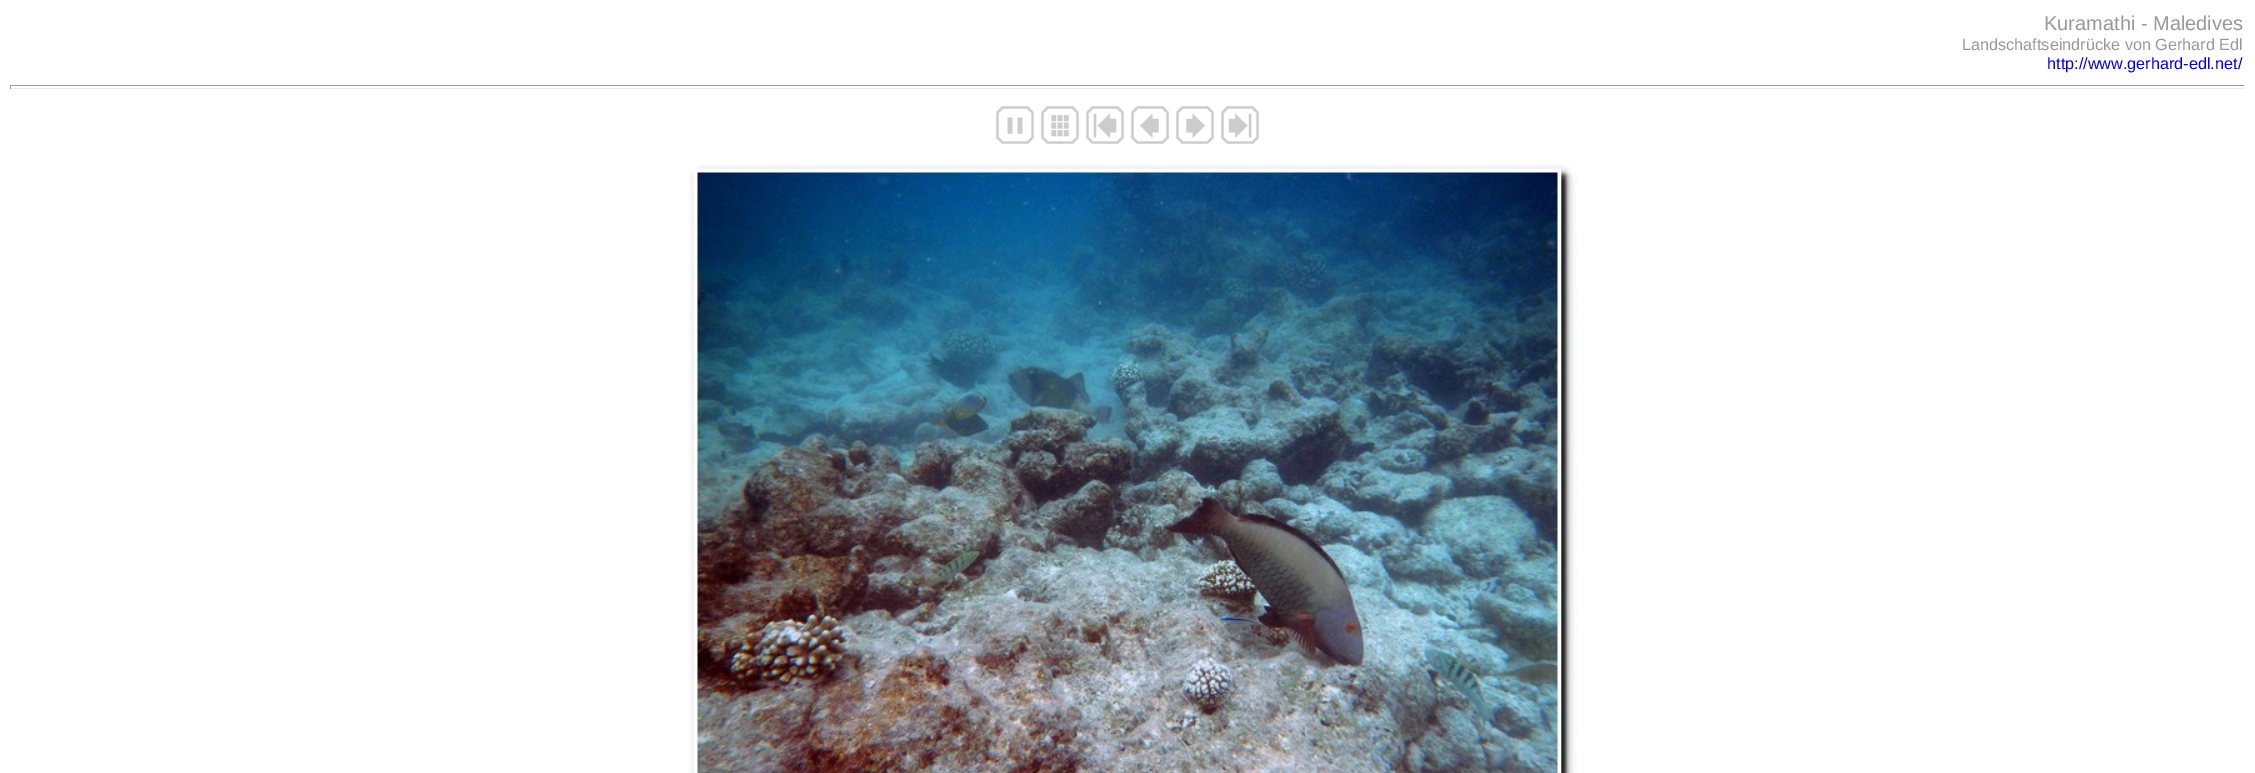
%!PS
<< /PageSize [2255 773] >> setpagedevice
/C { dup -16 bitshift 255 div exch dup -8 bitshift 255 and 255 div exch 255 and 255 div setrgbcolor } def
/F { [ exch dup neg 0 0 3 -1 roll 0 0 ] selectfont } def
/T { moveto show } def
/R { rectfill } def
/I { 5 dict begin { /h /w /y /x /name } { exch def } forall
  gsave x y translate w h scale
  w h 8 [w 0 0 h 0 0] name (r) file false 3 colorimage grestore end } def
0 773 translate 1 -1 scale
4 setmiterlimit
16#FFFFFF C
0 0 2255 773 R
/LiberationSans-Regular 20 F
16#999999 C
(Kuramathi - Maledives) 2044 30 T
/LiberationSans-Regular 16.25 F
(Landschaftseindrücke von Gerhard Edl) 1962 50 T
16#0000EE C
(http://www.gerhard-edl.net/) 2047 69 T
16#9F9F9F C
10 85 2235 1 R
16#EEEEEE C
2244 85 1 4 R
10 88 2235 1 R
16#9F9F9F C
10 85 1 4 R
(1.rgb) 996 106 38 38 I
(2.rgb) 1041 106 38 38 I
(3.rgb) 1086 106 38 38 I
(4.rgb) 1131 106 38 38 I
(5.rgb) 1176 106 38 38 I
(6.rgb) 1221 106 38 38 I
(7.rgb) 689 164 888 609 I
showpage
